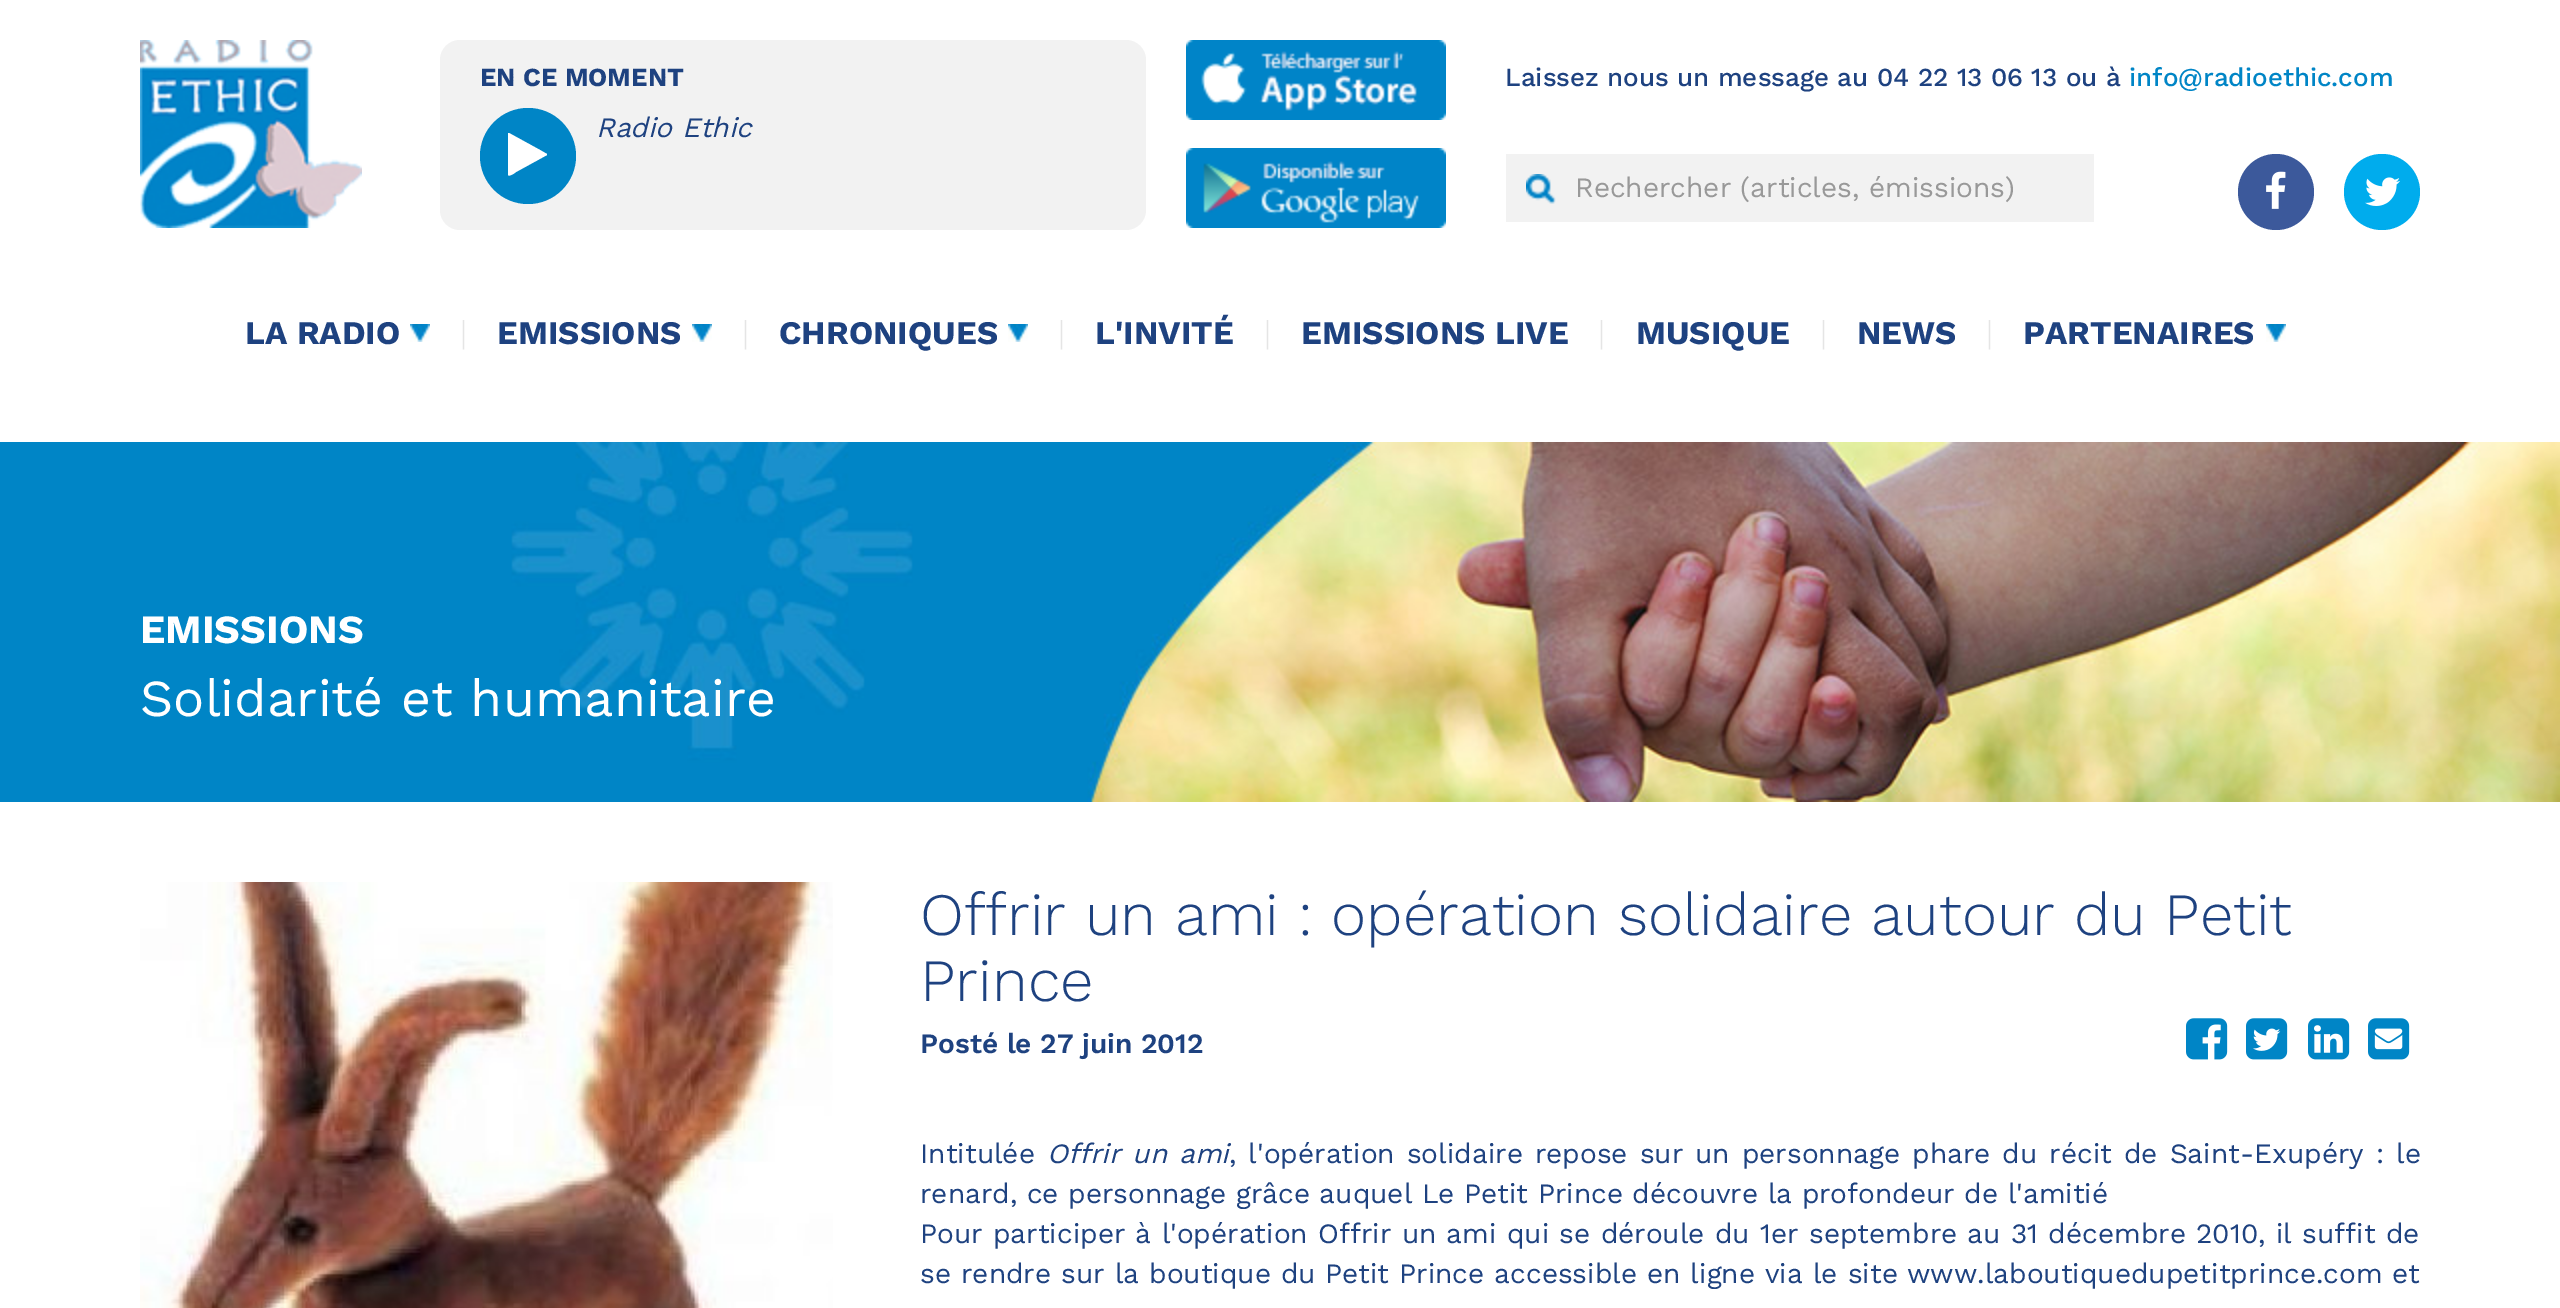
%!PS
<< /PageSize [2560 1308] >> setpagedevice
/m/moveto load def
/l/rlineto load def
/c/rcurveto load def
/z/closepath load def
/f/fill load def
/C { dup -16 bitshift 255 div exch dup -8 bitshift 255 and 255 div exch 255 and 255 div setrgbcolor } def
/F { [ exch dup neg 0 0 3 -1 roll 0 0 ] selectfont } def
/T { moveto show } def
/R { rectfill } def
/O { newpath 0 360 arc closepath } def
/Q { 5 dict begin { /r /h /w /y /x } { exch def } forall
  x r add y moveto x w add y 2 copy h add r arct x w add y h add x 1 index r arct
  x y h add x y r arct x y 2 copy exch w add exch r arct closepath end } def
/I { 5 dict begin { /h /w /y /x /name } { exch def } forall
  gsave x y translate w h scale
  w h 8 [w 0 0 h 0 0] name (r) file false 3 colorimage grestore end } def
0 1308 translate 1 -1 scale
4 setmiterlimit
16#FFFFFF C
0 0 2560 1308 R
(1.rgb) 140 40 222 188 I
16#F2F2F2 C
440 40 706 190 20 Q f
/WorkSans-Bold 26 F
16#1E4280 C
(EN CE MOMENT) 480 86 T
16#0085C6 C
528 156 48 O f
16#FFFFFF C
547 155 m -31 17 l -1 1 -7 5 -8 3 c 0 -42 l 1 0 l 31 17 l 7 4 l z f
/WorkSans-Italic 28 F
16#1E4280 C
(Radio Ethic) 596 137 T
(2.rgb) 1186 40 260 80 I
(3.rgb) 1186 148 260 80 I
/WorkSans-Medium 26 F
(Laissez nous un message au 04 22 13 06 13 ou à) 1505 86 T
16#0085C6 C
(info@radioethic.com) 2129 86 T
16#F2F2F2 C
1506 154 588 68 R
(4.rgb) 1526 174 30 30 I
/WorkSans-Regular 28 F
16#999999 C
(Rechercher \(articles, émissions\)) 1575 197 T
16#3C599B C
2276 192 38 O f
(5.rgb) 2266 171 20 38 I
16#00ACED C
2382 192 38 O f
(6.rgb) 2365 177 35 29 I
(7.rgb) 410 324 20 18 I
/WorkSans-Bold 33 F
16#1E4280 C
(LA RADIO) 245 344 T
(7.rgb) 692 324 20 18 I
/WorkSans-Light 33 F
16#E5E5E5 C
(|) 460 344 T
/WorkSans-Bold 33 F
16#1E4280 C
(EMISSIONS) 497 344 T
(7.rgb) 1008 324 20 18 I
/WorkSans-Light 33 F
16#E5E5E5 C
(|) 742 344 T
/WorkSans-Bold 33 F
16#1E4280 C
(CHRONIQUES) 779 344 T
/WorkSans-Light 33 F
16#E5E5E5 C
(|) 1058 344 T
/WorkSans-Bold 33 F
16#1E4280 C
(L'INVITÉ) 1095 344 T
/WorkSans-Light 33 F
16#E5E5E5 C
(|) 1264 344 T
/WorkSans-Bold 33 F
16#1E4280 C
(EMISSIONS LIVE) 1301 344 T
/WorkSans-Light 33 F
16#E5E5E5 C
(|) 1598 344 T
/WorkSans-Bold 33 F
16#1E4280 C
(MUSIQUE) 1636 344 T
/WorkSans-Light 33 F
16#E5E5E5 C
(|) 1820 344 T
/WorkSans-Bold 33 F
16#1E4280 C
(NEWS) 1857 344 T
(7.rgb) 2266 324 20 18 I
/WorkSans-Light 33 F
16#E5E5E5 C
(|) 1986 344 T
/WorkSans-Bold 33 F
16#1E4280 C
(PARTENAIRES) 2023 344 T
16#0085C6 C
0 442 511 360 R
(8.rgb) 511 442 2049 360 I
/WorkSans-Bold 40 F
16#FFFFFF C
(EMISSIONS) 140 643 T
/WorkSans-Regular 52 F
(Solidarité et humanitaire) 140 716 T
(9.rgb) 140 882 693 426 I
/WorkSans-Light 60 F
16#1E4280 C
(Offrir un ami : opération solidaire autour du Petit) 920 935 T
(Prince) 920 1001 T
/WorkSans-SemiBold 28 F
(Posté le 27 juin 2012) 920 1053 T
(10.rgb) 2186 1018 42 42 I
(11.rgb) 2246 1018 42 42 I
(12.rgb) 2308 1018 42 42 I
(13.rgb) 2368 1018 42 42 I
/WorkSans-Regular 28 F
(Intitulée) 920 1163 T
/WorkSans-Italic 28 F
1047 1163 m 2.5 0 32 (Offrir un ami) widthshow
/WorkSans-Regular 28 F
1229 1163 m 2.5 0 32 (, l'opération solidaire repose sur un personnage phare du récit de Saint-Exupéry : le) widthshow
(renard, ce personnage grâce auquel Le Petit Prince découvre la profondeur de l'amitié) 920 1203 T
920 1243 m .75 0 32 (Pour participer à l'opération Offrir un ami qui se déroule du 1er) widthshow
1809 1243 m .75 0 32 (septembre au 31 décembre 2010, il suffit de) widthshow
920 1283 m .5 0 32 (se rendre sur la boutique du) widthshow
1325 1283 m .5 0 32 (Petit Prince accessible en ligne via le site) widthshow
(www.laboutiquedupetitprince.com et) 1907 1283 T
showpage
